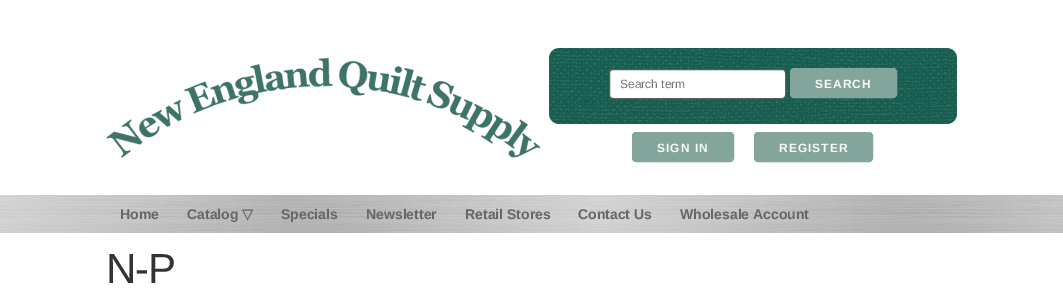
%!PS
<< /PageSize [1063 304] >> setpagedevice
/m/moveto load def
/f/fill load def
/s/stroke load def
/q/gsave load def
/Q_/grestore load def
/C { dup -16 bitshift 255 div exch dup -8 bitshift 255 and 255 div exch 255 and 255 div setrgbcolor } def
/F { [ exch dup neg 0 0 3 -1 roll 0 0 ] selectfont } def
/T { moveto show } def
/R { rectfill } def
/Q { 5 dict begin { /r /h /w /y /x } { exch def } forall
  x r add y moveto x w add y 2 copy h add r arct x w add y h add x 1 index r arct
  x y h add x y r arct x y 2 copy exch w add exch r arct closepath end } def
/I { 5 dict begin { /h /w /y /x /name } { exch def } forall
  gsave x y translate w h scale
  w h 8 [w 0 0 h 0 0] name (r) file false 3 colorimage grestore end } def
0 304 translate 1 -1 scale
4 setmiterlimit
16#FFFFFF C
0 0 1063 304 R
(1.rgb) 106 58 435 100 I
16#005A4A C
549 48 408 76 10 Q f
(2.rgb) 549 48 408 76 I
16#FFFFFF C
609.5 69.5 176 29 3.5 Q q f Q_
16#595D5D C
s
/LiberationSans-Regular 12 F
16#757575 C
(Search term) 620 88 T
16#84A59C C
790.5 68.5 106 29 3.5 Q q f Q_
s
/LiberationSans-Bold 12 F
16#F7F7F7 C
815 88 m 1 0 (SEARCH) ashow
16#84A59C C
632.5 132.5 101 29 3.5 Q q f Q_
s
16#F7F7F7 C
657 152 m 1 0 (SIGN IN) ashow
16#84A59C C
754.5 132.5 118 29 3.5 Q q f Q_
s
16#F7F7F7 C
779 152 m 1 0 (REGISTER) ashow
(3.rgb) 0 195 1063 38 I
/LiberationSans-Bold 14 F
16#666666 C
(Home) 120 219 T
(Catalog) 187 219 T
/DejaVuSans-Bold 14 F
(▽) 242 219 T
/LiberationSans-Bold 14 F
(Specials) 281 219 T
(Newsletter) 366 219 T
(Retail Stores) 465 219 T
(Contact Us) 578 219 T
(Wholesale Account) 680 219 T
/LiberationSans-Regular 42 F
16#333333 C
106 283 m -1 0 (N-P) ashow
showpage
